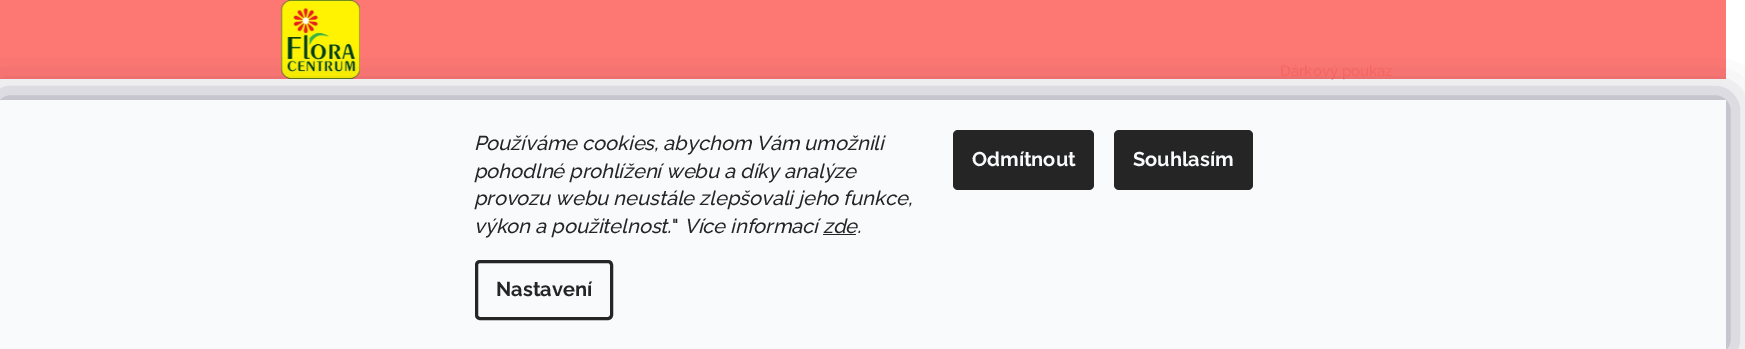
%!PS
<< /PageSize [1745 349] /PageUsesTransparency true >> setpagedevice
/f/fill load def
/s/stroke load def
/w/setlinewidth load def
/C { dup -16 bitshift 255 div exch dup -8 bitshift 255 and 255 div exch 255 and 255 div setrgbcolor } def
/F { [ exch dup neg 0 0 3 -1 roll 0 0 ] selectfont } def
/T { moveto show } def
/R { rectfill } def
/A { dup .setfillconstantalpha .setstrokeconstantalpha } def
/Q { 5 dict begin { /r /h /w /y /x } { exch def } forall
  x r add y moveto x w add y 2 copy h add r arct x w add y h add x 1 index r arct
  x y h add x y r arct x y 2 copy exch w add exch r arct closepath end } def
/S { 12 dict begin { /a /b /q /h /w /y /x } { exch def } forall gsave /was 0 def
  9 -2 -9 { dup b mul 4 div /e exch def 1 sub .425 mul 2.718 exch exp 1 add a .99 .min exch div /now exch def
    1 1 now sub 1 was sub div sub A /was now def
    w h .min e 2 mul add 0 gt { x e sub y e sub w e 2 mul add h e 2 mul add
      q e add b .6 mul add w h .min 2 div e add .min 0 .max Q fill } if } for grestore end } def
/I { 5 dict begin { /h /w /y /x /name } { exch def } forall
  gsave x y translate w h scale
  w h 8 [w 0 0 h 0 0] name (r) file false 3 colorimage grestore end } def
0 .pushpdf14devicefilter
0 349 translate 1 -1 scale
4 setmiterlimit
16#FFFFFF C
0 0 1745 349 R
16#FD7773 C
0 0 1726 79 R
(1.rgb) 280 0 80 79 I
/Raleway-Medium 15 F
16#FD6863 C
(Dárkový poukaz) 1280 76 T
16#1B1939 C
0 100 1726 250 0 19 .5 S
16#F8FAFB C
0 100 1726 249 R
/Raleway-MediumItalic 20 F
16#252525 C
(Používáme cookies, abychom Vám umožnili) 474 150 T
(pohodlné prohlížení webu a díky analýze) 474 178 T
(provozu webu neustále zlepšovali jeho funkce,) 474 205 T
(výkon a použitelnost.) 474 233 T
/Raleway-Medium 20 F
(") 672 233 T
/Raleway-MediumItalic 20 F
(Více informací zde.) 684 233 T
823 234 33 1 R
3 w
476.5 261.5 135 57 3.5 Q s
/Raleway-Bold 20 F
(Nastavení) 496 296 T
953 130 141 60 5 Q f
16#F8FAFB C
(Odmítnout) 972 166 T
16#252525 C
1114 130 139 60 5 Q f
16#F8FAFB C
(Souhlasím) 1133 166 T
.poppdf14devicefilter showpage
